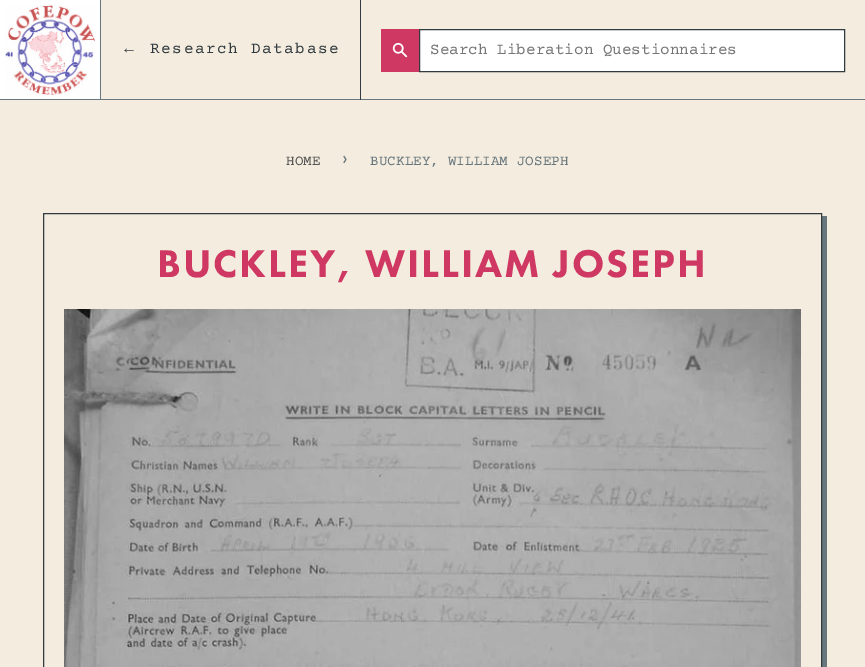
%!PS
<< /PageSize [865 667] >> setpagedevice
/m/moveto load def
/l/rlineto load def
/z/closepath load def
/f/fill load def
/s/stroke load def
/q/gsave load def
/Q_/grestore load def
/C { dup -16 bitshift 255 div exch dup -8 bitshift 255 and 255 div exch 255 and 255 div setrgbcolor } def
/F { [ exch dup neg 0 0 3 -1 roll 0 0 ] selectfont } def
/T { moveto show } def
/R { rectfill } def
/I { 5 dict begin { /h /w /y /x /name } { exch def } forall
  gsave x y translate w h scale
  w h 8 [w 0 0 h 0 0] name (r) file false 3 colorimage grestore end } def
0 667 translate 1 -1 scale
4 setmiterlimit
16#F4EDDF C
0 0 865 667 R
16#68767D C
101 99 764 1 R
16#FFFFFF C
0 0 100 99 R
16#68767D C
100 0 1 100 R
0 99 101 1 R
(1.rgb) 5 5 90 90 I
16#323B40 C
360 0 1 100 R
/LiberationSans-Regular 16 F
121 53 m 1.6 0 (←) ashow
/CourierPrime-Regular 16 F
150 53 m 1.6 0 (Research Database) ashow
16#CF3862 C
381 29 38 43 R
(2.rgb) 392 42 16 16 I
16#FFFFFF C
419.5 29.5 m 425 0 l 0 42 l -425 0 l z q f Q_
16#323B40 C
s
16#757575 C
(Search Liberation Questionnaires) 430 54 T
/CourierPrime-Regular 14.4 F
16#555555 C
(HOME) 286 165 T
/CourierPrime-Regular 20 F
16#68767D C
(›) 339 165 T
/CourierPrime-Regular 14.4 F
(BUCKLEY, WILLIAM JOSEPH) 370 165 T
46 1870 m 0 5 l 781 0 l 0 -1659 l -5 0 l 0 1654 l z f
16#323B40 C
43.5 213.5 778 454 rectstroke
/FuturaPT-Black 40 F
16#CF3862 C
157 277 m 2 0 (BUCKLEY, WILLIAM JOSEPH) ashow
(3.rgb) 64 309 737 358 I
showpage
